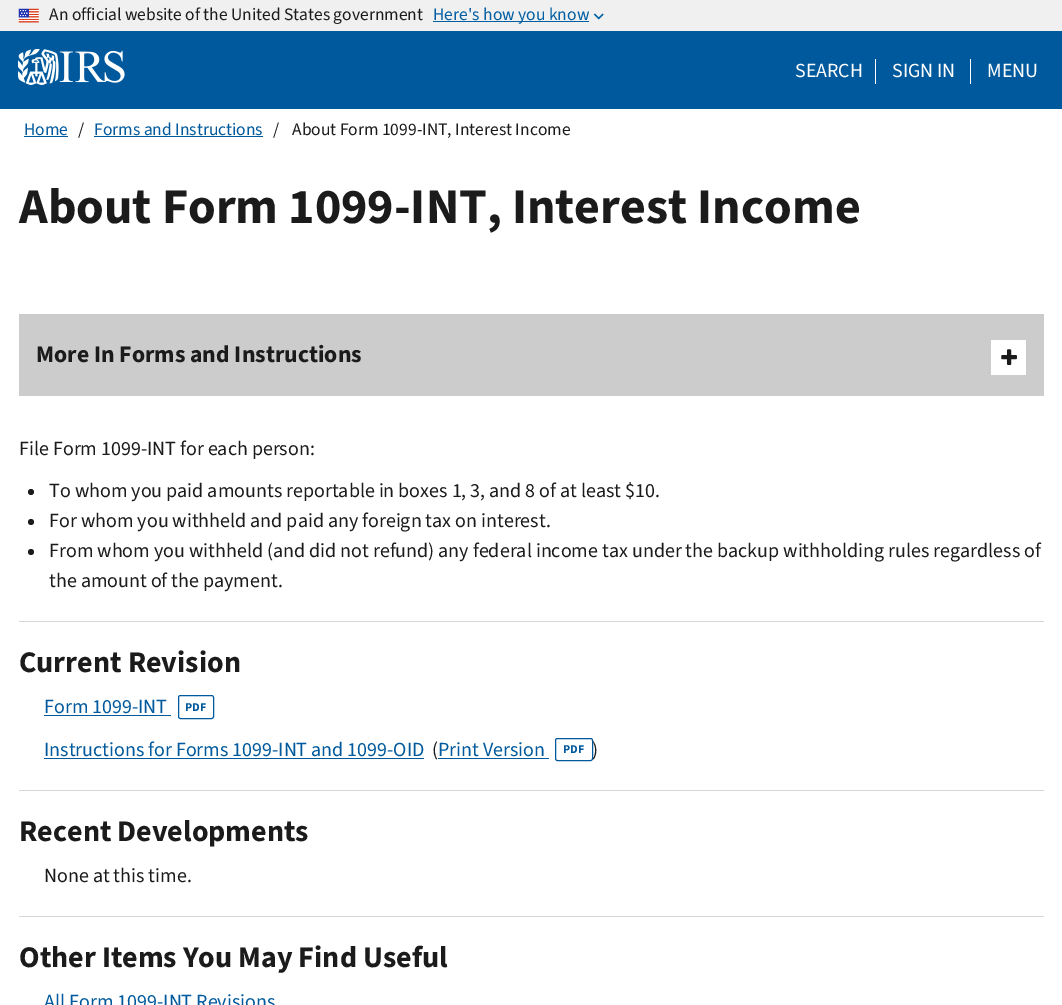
%!PS
<< /PageSize [1062 1005] >> setpagedevice
/f/fill load def
/s/stroke load def
/C { dup -16 bitshift 255 div exch dup -8 bitshift 255 and 255 div exch 255 and 255 div setrgbcolor } def
/F { [ exch dup neg 0 0 3 -1 roll 0 0 ] selectfont } def
/T { moveto show } def
/R { rectfill } def
/O { newpath 0 360 arc closepath } def
/Q { 5 dict begin { /r /h /w /y /x } { exch def } forall
  x r add y moveto x w add y 2 copy h add r arct x w add y h add x 1 index r arct
  x y h add x y r arct x y 2 copy exch w add exch r arct closepath end } def
/I { 5 dict begin { /h /w /y /x /name } { exch def } forall
  gsave x y translate w h scale
  w h 8 [w 0 0 h 0 0] name (r) file false 3 colorimage grestore end } def
0 1005 translate 1 -1 scale
4 setmiterlimit
16#FFFFFF C
0 0 1062 1005 R
16#F0F0F0 C
0 0 1062 31 R
(1.rgb) 18 8 21 15 I
/SourceSans3-Regular 17.5 F
16#1B1B1B C
(An official website of the United States government) 49 20 T
16#005EA2 C
433 21 156 1 R
(Here's how you know) 433 20 T
(2.rgb) 593 13 11 7 I
16#00599C C
0 31 1062 78 R
(3.rgb) 18 49 107 36 I
16#FFFFFF C
875 59 1 25 R
/SourceSans3-Regular 20 F
(SEARCH) 795 77 T
970 59 1 25 R
(SIGN IN) 892 77 T
(MENU) 987 77 T
/SourceSans3-Regular 17.5 F
16#00599C C
(Home) 24 135 T
24 136 44 1 R
16#1B1B1B C
(/) 78 135 T
16#00599C C
(Forms and Instructions) 94 135 T
94 136 169 1 R
16#1B1B1B C
(/) 273 135 T
(About Form 1099-INT, Interest Income) 292 135 T
/SourceSans3-Bold 50 F
(About Form 1099-INT, Interest Income) 19 223 T
16#CCCCCC C
19 314 1025 82 R
/SourceSans3-Bold 23.75 F
16#1B1B1B C
(More In Forms and Instructions) 36 362 T
16#FFFFFF C
991 340 35 35 R
(4.rgb) 1001 349 16 16 I
/SourceSans3-Regular 20 F
16#1B1B1B C
(File Form 1099-INT for each person:) 19 455 T
31 492 3 O f
(To whom you paid amounts reportable in boxes 1, 3, and 8 of at least $10.) 49 497 T
31 522 3 O f
(For whom you withheld and paid any foreign tax on interest.) 49 527 T
31 552 3 O f
(From whom you withheld \(and did not refund\) any federal income tax under the backup withholding rules regardless of) 49 557 T
(the amount of the payment.) 49 587 T
16#D6D7D9 C
19 621 1025 1 R
/SourceSans3-Bold 30 F
16#1B1B1B C
(Current Revision) 19 672 T
/SourceSans3-Regular 20 F
16#00599C C
(Form 1099-INT) 44 713 T
44 715 127 1 R
178.5 695.5 35 23 2 Q s
/SourceSans3-Bold 12 F
(PDF) 185 711 T
/SourceSans3-Regular 20 F
(Instructions for Forms 1099-INT and 1099-OID) 44 756 T
44 758 380 1 R
16#1B1B1B C
(\() 432 756 T
16#00599C C
(Print Version) 438 756 T
438 758 111 1 R
555.5 738.5 37 22 2 Q s
/SourceSans3-Bold 12 F
(PDF) 563 753 T
/SourceSans3-Regular 20 F
16#1B1B1B C
(\)) 592 756 T
16#D6D7D9 C
19 790 1025 1 R
/SourceSans3-Bold 30 F
16#1B1B1B C
(Recent Developments) 19 841 T
/SourceSans3-Regular 20 F
(None at this time.) 44 882 T
16#D6D7D9 C
19 916 1025 1 R
/SourceSans3-Bold 30 F
16#1B1B1B C
(Other Items You May Find Useful) 19 967 T
/SourceSans3-Regular 20 F
16#00599C C
(All Form 1099-INT Revisions) 44 1008 T
showpage
